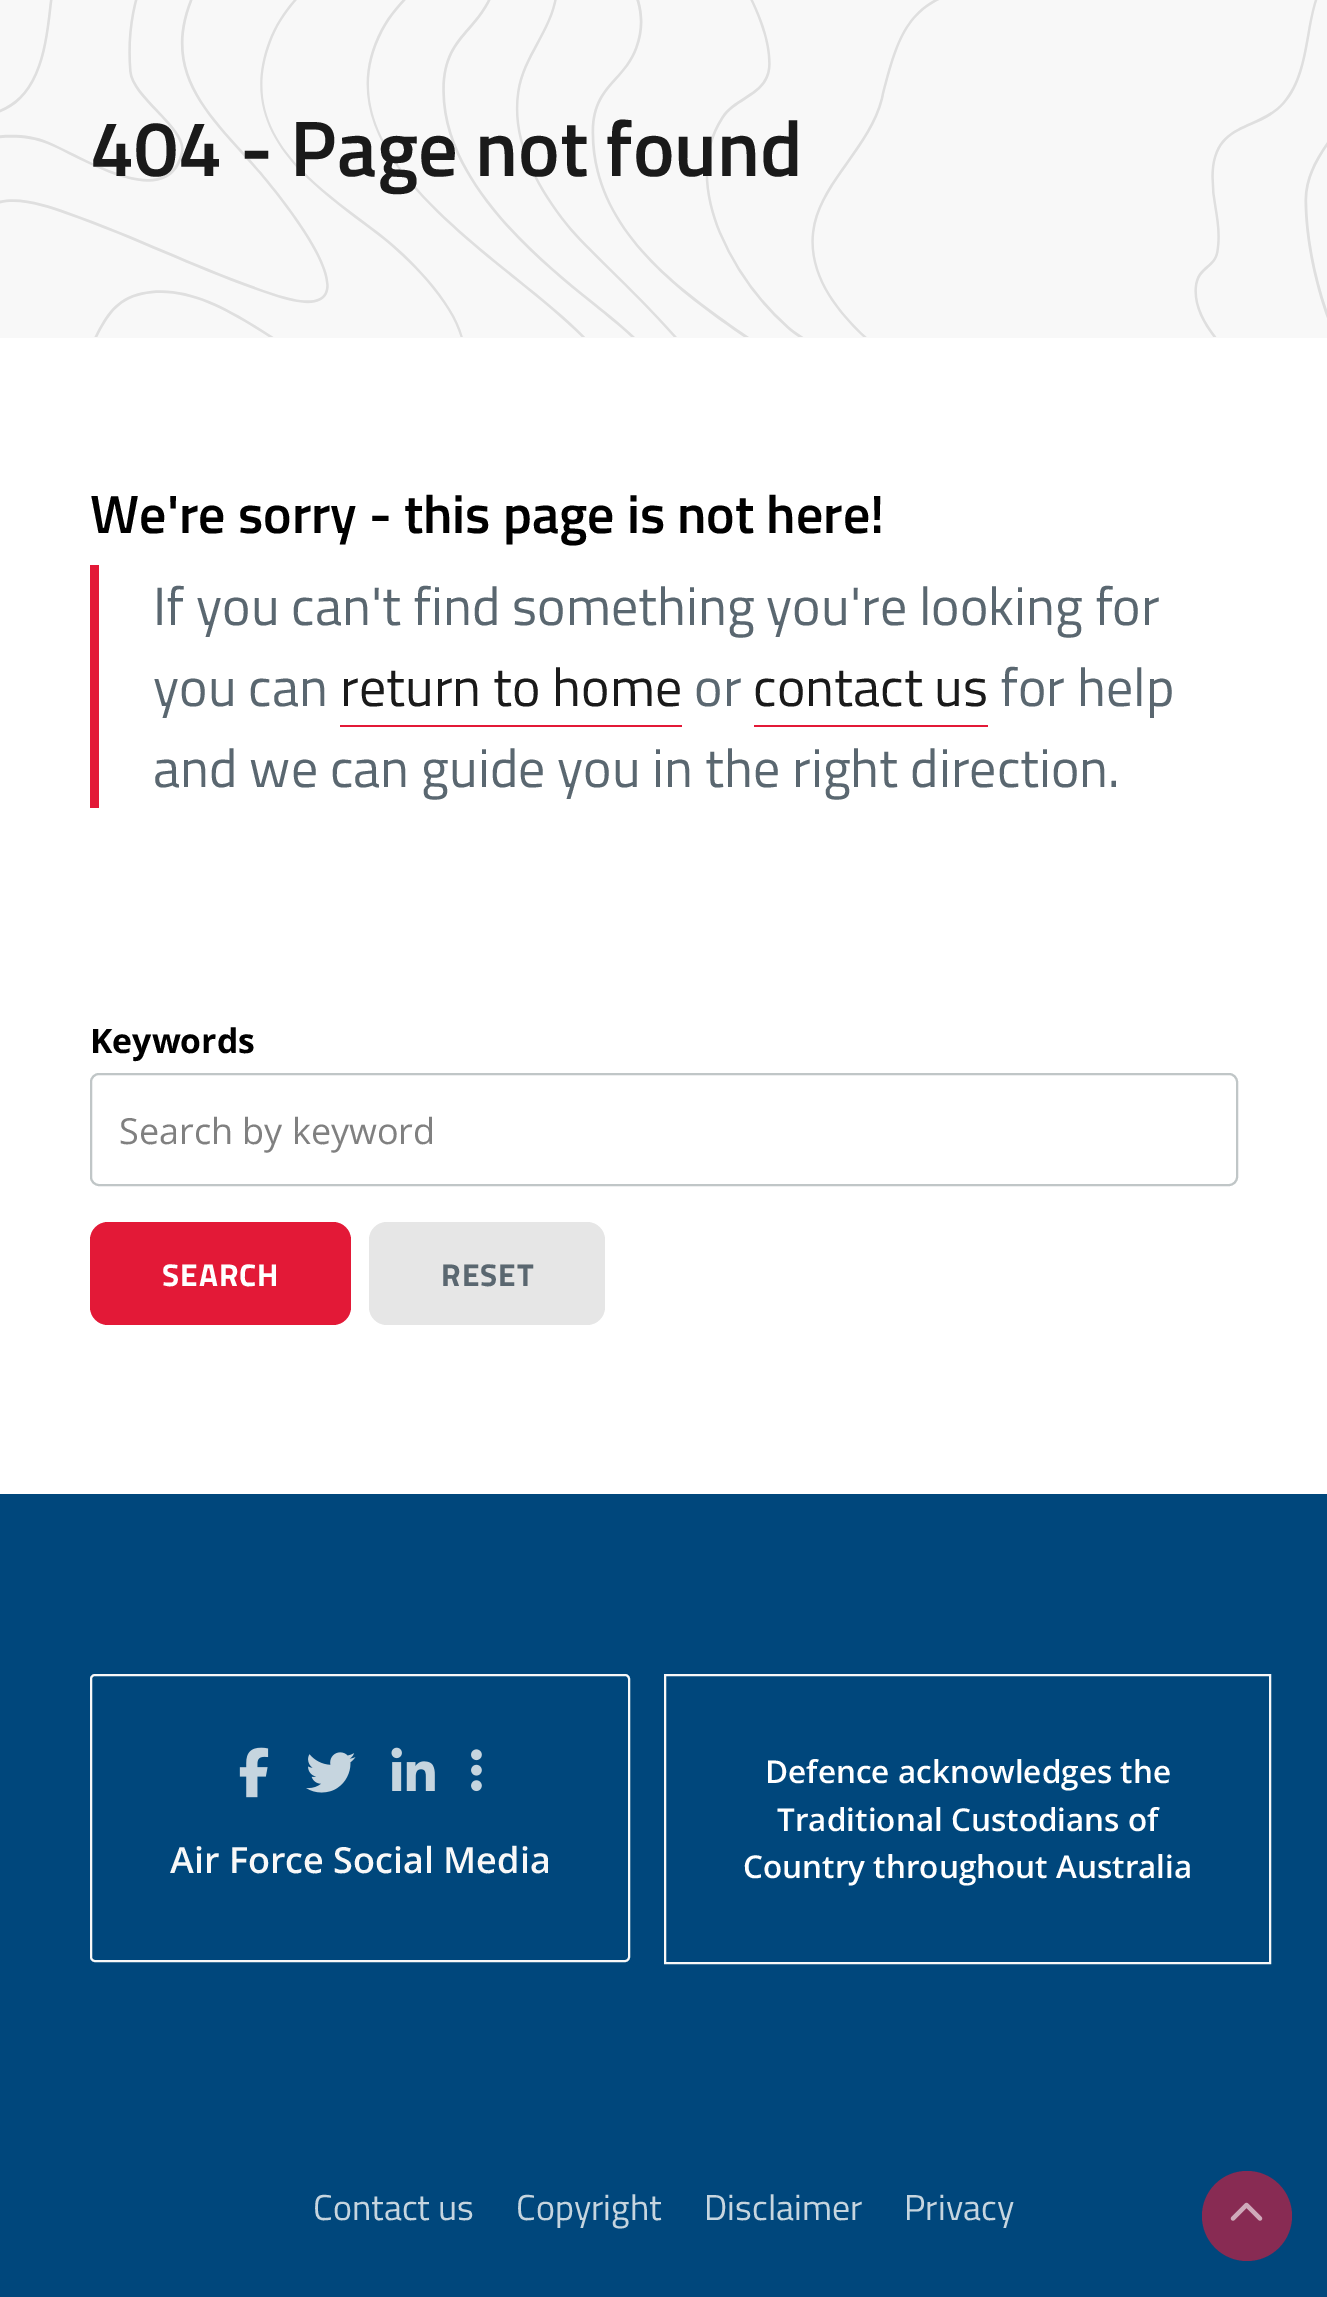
%!PS
<< /PageSize [1327 2297] >> setpagedevice
/m/moveto load def
/f/fill load def
/s/stroke load def
/w/setlinewidth load def
/C { dup -16 bitshift 255 div exch dup -8 bitshift 255 and 255 div exch 255 and 255 div setrgbcolor } def
/F { [ exch dup neg 0 0 3 -1 roll 0 0 ] selectfont } def
/T { moveto show } def
/R { rectfill } def
/O { newpath 0 360 arc closepath } def
/Q { 5 dict begin { /r /h /w /y /x } { exch def } forall
  x r add y moveto x w add y 2 copy h add r arct x w add y h add x 1 index r arct
  x y h add x y r arct x y 2 copy exch w add exch r arct closepath end } def
/I { 5 dict begin { /h /w /y /x /name } { exch def } forall
  gsave x y translate w h scale
  w h 8 [w 0 0 h 0 0] name (r) file false 3 colorimage grestore end } def
0 2297 translate 1 -1 scale
4 setmiterlimit
16#FFFFFF C
0 0 1327 2297 R
16#F8F8F8 C
0 0 1327 338 R
(1.rgb) 0 0 1327 337 I
/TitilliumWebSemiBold-SemiBold 78.75 F
16#1A1A1A C
(404 - Page not found) 90 176 T
/TitilliumWebSemiBold-SemiBold 54 F
16#000000 C
(We're sorry - this page is not here!) 90 533 T
16#E31937 C
90 565 9 243 R
/TitilliumWeb-Regular 54 F
16#5A6770 C
(If you can't find something you're looking for) 153 625 T
(you can) 153 706 T
16#1A1A1A C
(return to home) 340 706 T
16#E31937 C
340 725 342 2 R
16#5A6770 C
(or) 694 706 T
16#1A1A1A C
(contact us) 753 706 T
16#E31937 C
754 725 234 2 R
16#5A6770 C
(for help) 1000 706 T
(and we can guide you in the right direction.) 153 787 T
/OpenSans-Bold 33.75 F
16#000000 C
(Keywords) 90 1053 T
16#C0C6C7 C
2 w
91 1074 1146 111 8 Q s
/OpenSans-Regular 36 F
16#808080 C
(Search by keyword) 119 1144 T
16#E31937 C
90 1222 261 103 18 Q f
/TitilliumWeb-Bold 31.5 F
16#FFFFFF C
162 1286 m 1 0 (SEARCH) ashow
16#E6E6E6 C
369 1222 236 103 18 Q f
16#5A6770 C
441 1286 m 1 0 (RESET) ashow
16#00477C C
0 1494 1327 803 R
16#F8F8F8 C
91 1675 538 286 4 Q s
(2.rgb) 239 1747 30 51 I
(3.rgb) 306 1752 50 41 I
(4.rgb) 391 1747 44 44 I
(5.rgb) 471 1749 11 43 I
/OpenSans-SemiBold 36 F
(Air Force Social Media) 170 1873 T
665 1675 605 288 rectstroke
/OpenSans-SemiBold 31.5 F
16#FFFFFF C
(Defence acknowledges the) 765 1783 T
(Traditional Custodians of) 777 1831 T
(Country throughout Australia) 743 1878 T
/TitilliumWeb-Regular 36 F
16#C6D5DF C
(Contact us) 313 2220 T
(Copyright) 516 2220 T
(Disclaimer) 704 2220 T
(Privacy) 904 2220 T
16#882B53 C
1247 2216 45 O f
(6.rgb) 1230 2202 33 19 I
showpage
